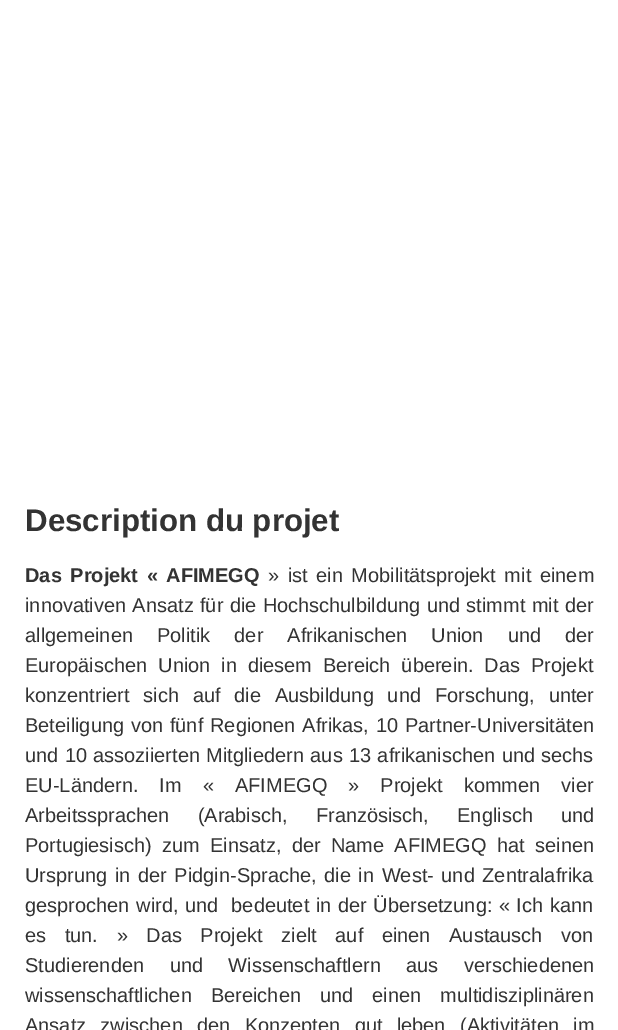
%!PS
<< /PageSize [618 1030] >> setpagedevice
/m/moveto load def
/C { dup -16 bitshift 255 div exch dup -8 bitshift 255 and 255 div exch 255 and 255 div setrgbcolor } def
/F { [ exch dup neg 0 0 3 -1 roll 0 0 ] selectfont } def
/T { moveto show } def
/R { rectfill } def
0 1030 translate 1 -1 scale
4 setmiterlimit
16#FFFFFF C
0 0 618 1030 R
/LiberationSans-Bold 31.25 F
16#333333 C
(Description du projet) 25 531 T
/LiberationSans-Bold 20 F
25 582 m 3 0 32 (Das Projekt « AFIMEGQ) widthshow
/LiberationSans-Regular 20 F
268 582 m 3 0 32 (» ist ein Mobilitätsprojekt mit einem) widthshow
25 612 m .75 0 32 (innovativen Ansatz für die Hochschulbildung und stimmt mit der) widthshow
25 642 m 18.5 0 32 (allgemeinen Politik der Afrikanischen Union und der) widthshow
25 672 m 5.25 0 32 (Europäischen Union in diesem Bereich überein. Das Projekt) widthshow
25 702 m 8.25 0 32 (konzentriert sich auf die Ausbildung und Forschung, unter) widthshow
25 732 m 1.25 0 32 (Beteiligung von fünf Regionen Afrikas, 10 Partner-Universitäten) widthshow
25 762 m .75 0 32 (und 10 assoziierten Mitgliedern aus 13 afrikanischen und sechs) widthshow
25 792 m 15.5 0 32 (EU-Ländern. Im « AFIMEGQ » Projekt kommen vier) widthshow
25 822 m 22.5 0 32 (Arbeitssprachen \(Arabisch, Französisch, Englisch und) widthshow
25 852 m 4.75 0 32 (Portugiesisch\) zum Einsatz, der Name AFIMEGQ hat seinen) widthshow
25 882 m 2 0 32 (Ursprung in der Pidgin-Sprache, die in West- und Zentralafrika) widthshow
25 912 m 1 0 32 (gesprochen wird, und  bedeutet in der Übersetzung: « Ich kann) widthshow
25 942 m 13 0 32 (es tun. » Das Projekt zielt auf einen Austausch von) widthshow
25 972 m 20 0 32 (Studierenden und Wissenschaftlern aus verschiedenen) widthshow
25 1002 m 13.5 0 32 (wissenschaftlichen Bereichen und einen multidisziplinären) widthshow
25 1032 m 8.75 0 32 (Ansatz zwischen den Konzepten gut leben \(Aktivitäten im) widthshow
showpage
